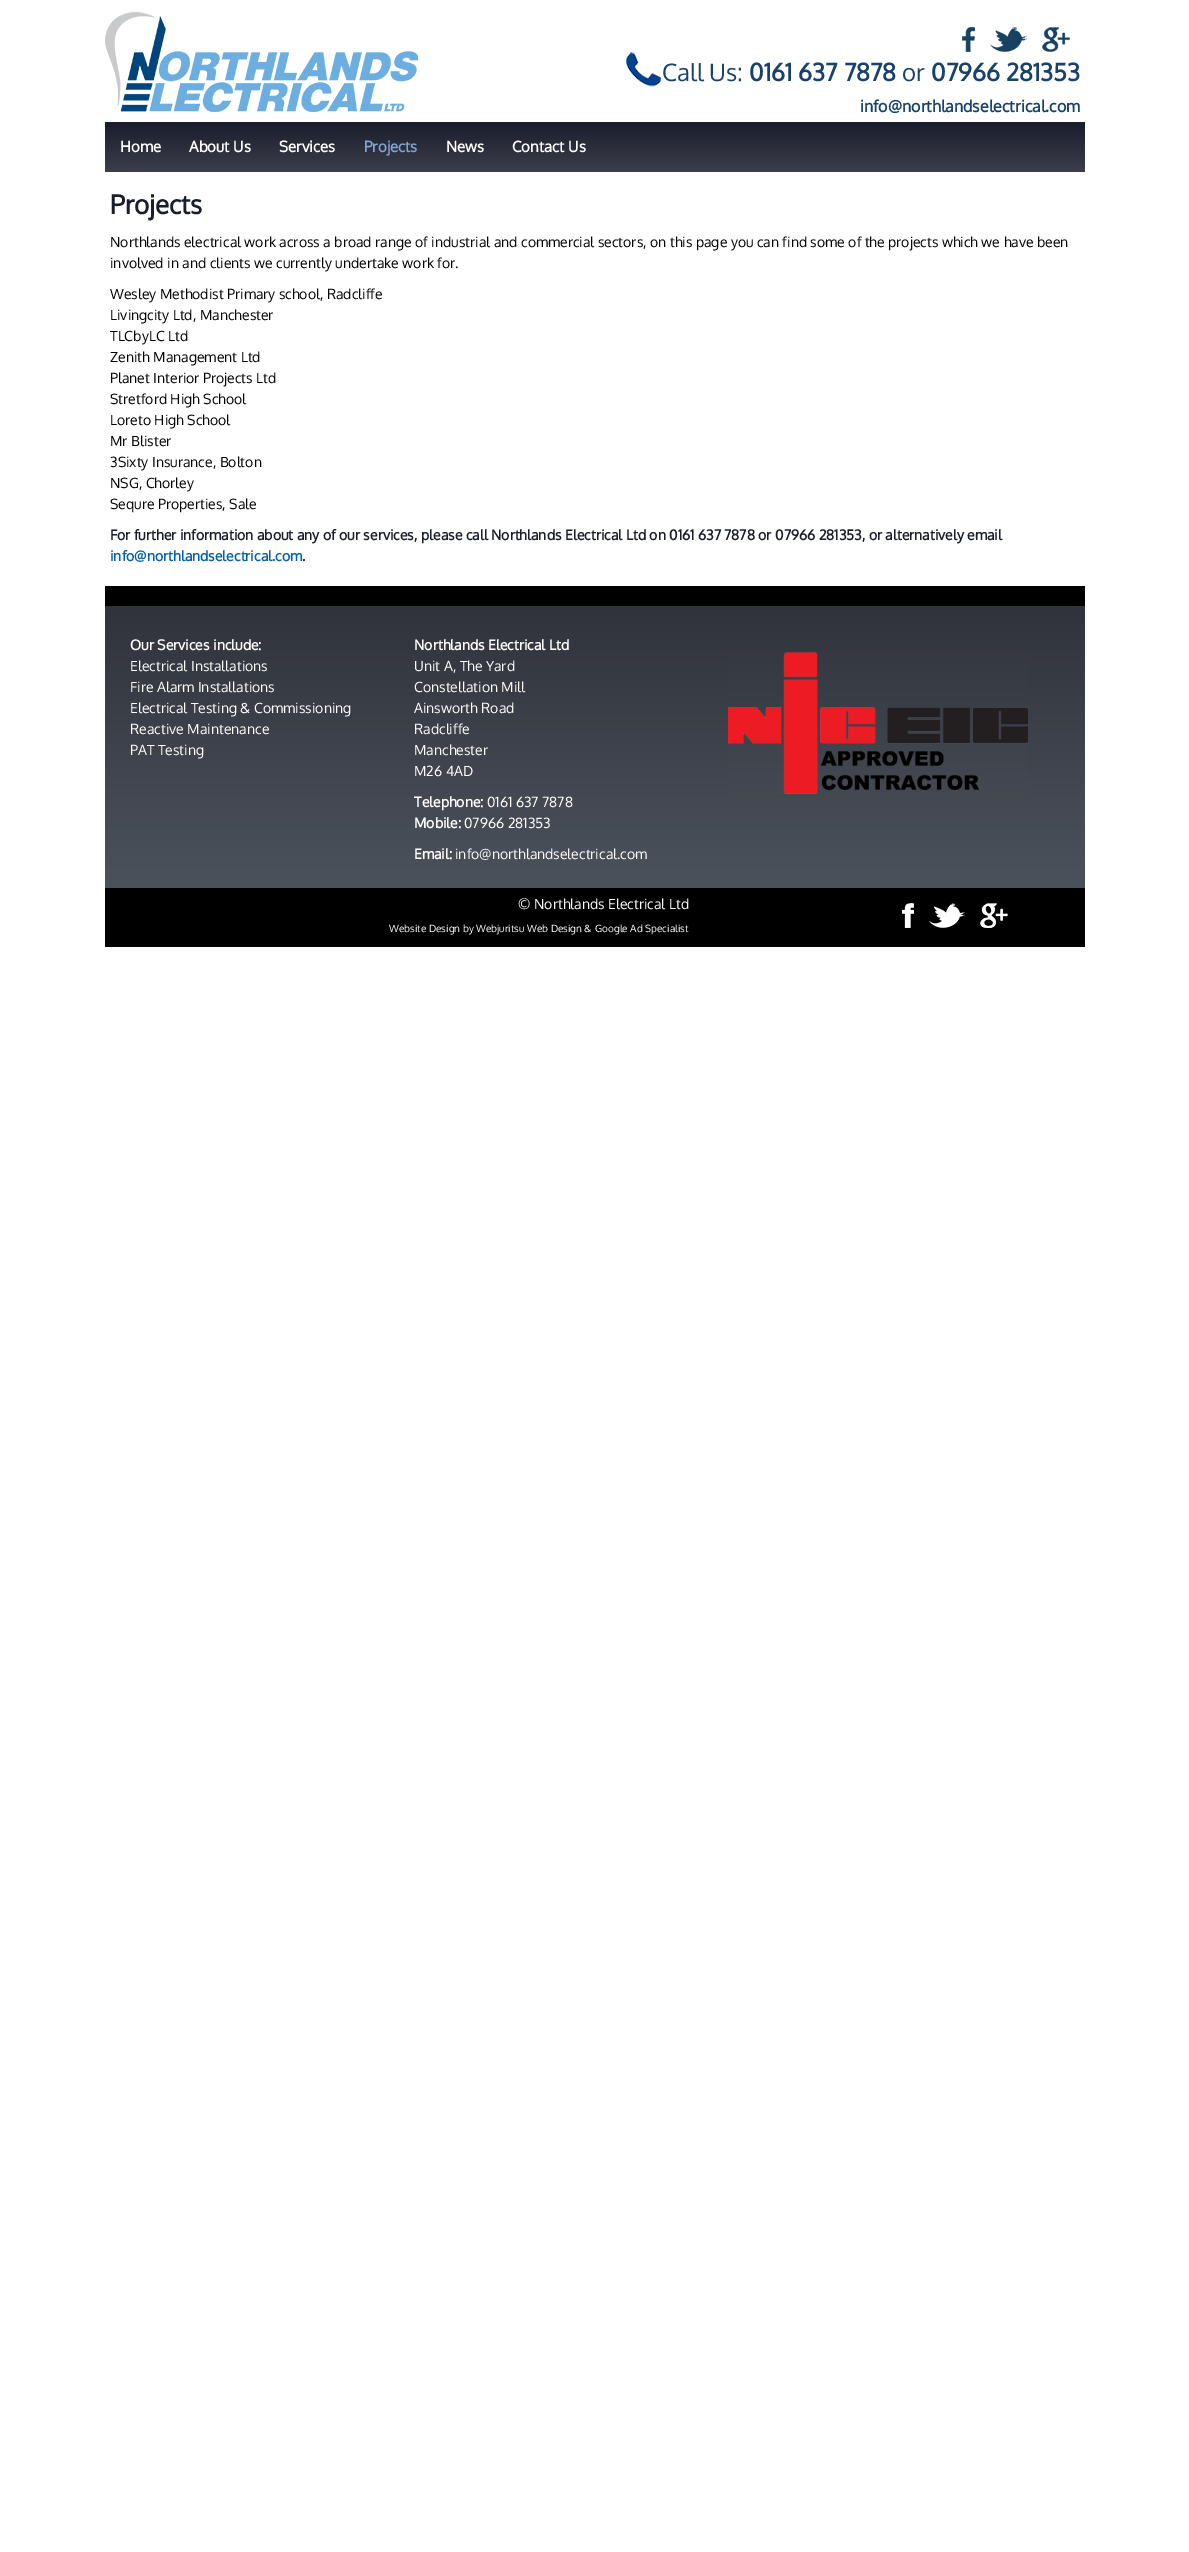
%!PS
<< /PageSize [1189 2552] >> setpagedevice
/m/moveto load def
/l/rlineto load def
/z/closepath load def
/q/gsave load def
/Q_/grestore load def
/C { dup -16 bitshift 255 div exch dup -8 bitshift 255 and 255 div exch 255 and 255 div setrgbcolor } def
/F { [ exch dup neg 0 0 3 -1 roll 0 0 ] selectfont } def
/T { moveto show } def
/R { rectfill } def
/I { 5 dict begin { /h /w /y /x /name } { exch def } forall
  gsave x y translate w h scale
  w h 8 [w 0 0 h 0 0] name (r) file false 3 colorimage grestore end } def
0 2552 translate 1 -1 scale
4 setmiterlimit
16#FFFFFF C
0 0 1189 2552 R
(1.rgb) 105 12 313 100 I
(2.rgb) 962 27 13 25 I
(3.rgb) 990 27 37 25 I
(4.rgb) 1042 27 28 25 I
(5.rgb) 626 52 35 35 I
/Oxygen-Regular 24 F
16#18426C C
(Call Us:) 662 81 T
/Oxygen-Bold 24 F
(0161 637 7878) 749 81 T
/Oxygen-Regular 24 F
(or) 902 81 T
/Oxygen-Bold 24 F
(07966 281353) 931 81 T
/Oxygen-Bold 16 F
(info@northlandselectrical.com) 860 112 T
q 105 122 m 980 0 l 0 50 l -980 0 l z clip newpath
<< /ShadingType 2 /ColorSpace /DeviceRGB /Coords [595 122 595 172] /Extend [true true] /Function << /FunctionType 2 /Domain [0 1] /C0 [.102 .114 .169] /C1 [.235 .243 .298] /N 1 >> >> shfill Q_
/Oxygen-Bold 15 F
16#FFFFFF C
(Home) 120 152 T
(About Us) 189 152 T
(Services) 279 152 T
16#83A5D3 C
(Projects) 364 152 T
16#FFFFFF C
(News) 446 152 T
(Contact Us) 512 152 T
/Oxygen-Bold 26 F
16#1A1D2B C
(Projects) 110 214 T
/Oxygen-Regular 14 F
16#000000 C
(Northlands electrical work across a broad range of industrial and commercial sectors, on this page you can find some of the projects which we have been) 110 247 T
(involved in and clients we currently undertake work for.) 110 268 T
(Wesley Methodist Primary school, Radcliffe) 110 299 T
(Livingcity Ltd, Manchester) 110 320 T
(TLCbyLC Ltd) 110 341 T
(Zenith Management Ltd) 110 362 T
(Planet Interior Projects Ltd) 110 383 T
(Stretford High School) 110 404 T
(Loreto High School) 110 425 T
(Mr Blister) 110 446 T
(3Sixty Insurance, Bolton) 110 467 T
(NSG, Chorley) 110 488 T
(Sequre Properties, Sale) 110 509 T
/Oxygen-Bold 14 F
16#1A1D2B C
(For further information about any of our services, please call Northlands Electrical Ltd on 0161 637 7878 or 07966 281353, or alternatively email) 110 540 T
16#0462A8 C
(info@northlandselectrical.com) 110 561 T
16#1A1D2B C
(.) 302 561 T
q 105 606 m 980 0 l 0 282 l -980 0 l z clip newpath
<< /ShadingType 2 /ColorSpace /DeviceRGB /Coords [595 606 595 947] /Extend [true true] /Function << /FunctionType 2 /Domain [0 1] /C0 [.188 .2 .235] /C1 [.322 .349 .388] /N 1 >> >> shfill Q_
16#000000 C
105 586 980 20 R
16#FFFFFF C
(Our Services include:) 130 650 T
/Oxygen-Regular 14 F
(Electrical Installations) 130 671 T
(Fire Alarm Installations) 130 692 T
(Electrical Testing & Commissioning) 130 713 T
(Reactive Maintenance) 130 734 T
(PAT Testing) 130 755 T
/Oxygen-Bold 14 F
(Northlands Electrical Ltd) 414 650 T
/Oxygen-Regular 14 F
(Unit A, The Yard) 414 671 T
(Constellation Mill) 414 692 T
(Ainsworth Road) 414 713 T
(Radcliffe) 414 734 T
(Manchester) 414 755 T
(M26 4AD) 414 776 T
/Oxygen-Bold 14 F
(Telephone:) 414 807 T
/Oxygen-Regular 14 F
(0161 637 7878) 487 807 T
/Oxygen-Bold 14 F
(Mobile:) 414 828 T
/Oxygen-Regular 14 F
(07966 281353) 464 828 T
/Oxygen-Bold 14 F
(Email:) 414 859 T
/Oxygen-Regular 14 F
(info@northlandselectrical.com) 455 859 T
(6.rgb) 728 651 300 143 I
16#000000 C
105 888 980 59 R
16#FFFFFF C
(© Northlands Electrical Ltd) 518 909 T
/Oxygen-Regular 10 F
(Website Design by Webjuritsu Web Design &) 389 932 T
(Google Ad Specialist) 595 932 T
(7.rgb) 902 903 12 25 I
(8.rgb) 929 903 36 25 I
(9.rgb) 980 903 28 25 I
showpage
